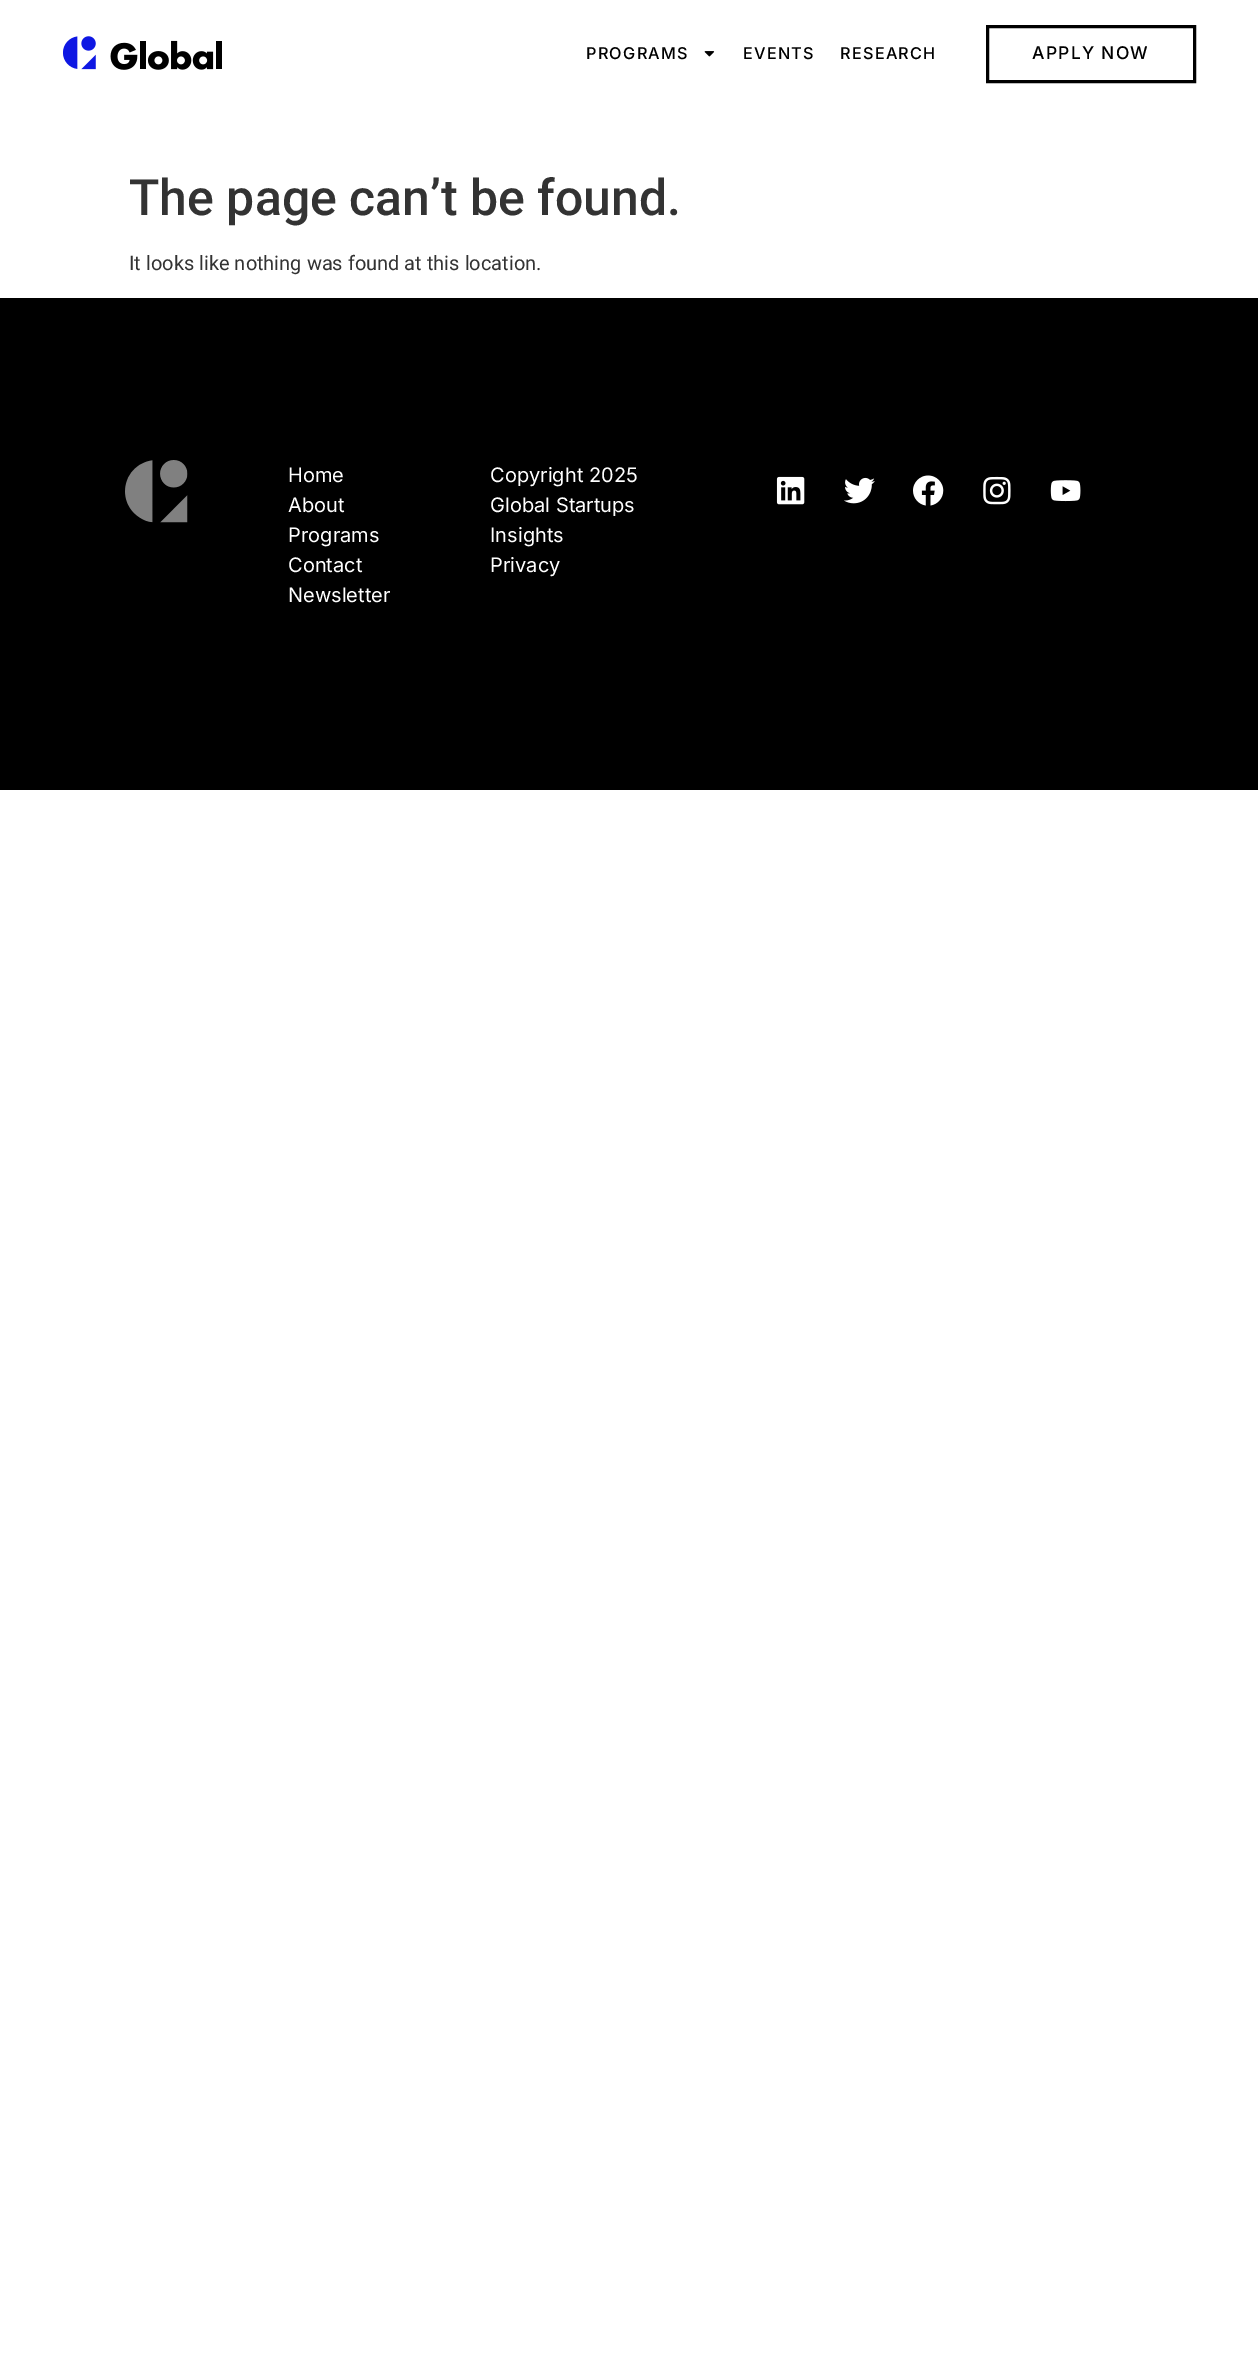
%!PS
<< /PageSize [1258 2375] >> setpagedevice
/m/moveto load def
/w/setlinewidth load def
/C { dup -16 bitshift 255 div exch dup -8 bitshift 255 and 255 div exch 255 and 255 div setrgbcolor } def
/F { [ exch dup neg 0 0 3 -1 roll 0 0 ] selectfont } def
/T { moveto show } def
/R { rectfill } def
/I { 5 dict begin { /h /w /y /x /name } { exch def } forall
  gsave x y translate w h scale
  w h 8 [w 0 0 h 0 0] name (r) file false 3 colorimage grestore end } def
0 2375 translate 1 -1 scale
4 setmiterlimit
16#FFFFFF C
0 0 1258 2375 R
(1.rgb) 63 36 159 34 I
/Inter-Medium 16.25 F
16#000000 C
586 59 m 1.25 0 (PROGRAMS) ashow
(2.rgb) 704 51 11 6 I
743 59 m 1.25 0 (EVENTS) ashow
840 59 m 1.25 0 (RESEARCH) ashow
3 w
987.5 26.5 207 55 rectstroke
/Inter-Medium 17.5 F
1032 59 m 1.25 0 (APPLY NOW) ashow
/Roboto-Medium 50 F
16#333333 C
(The page can’t be found.) 129 215 T
/Roboto-Regular 20 F
(It looks like nothing was found at this location.) 129 270 T
16#000000 C
0 298 1258 492 R
(3.rgb) 125 460 63 63 I
/Inter-Regular 20 F
16#FFFFFF C
(Home) 288 482 T
(About) 288 512 T
(Programs) 288 542 T
(Contact) 288 572 T
(Newsletter) 288 602 T
(Copyright 2025) 490 482 T
(Global Startups) 490 512 T
(Insights) 490 542 T
(Privacy) 490 572 T
(4.rgb) 776 476 29 29 I
(5.rgb) 844 477 31 27 I
(6.rgb) 913 475 31 31 I
(7.rgb) 983 476 28 29 I
(8.rgb) 1050 480 31 22 I
showpage
